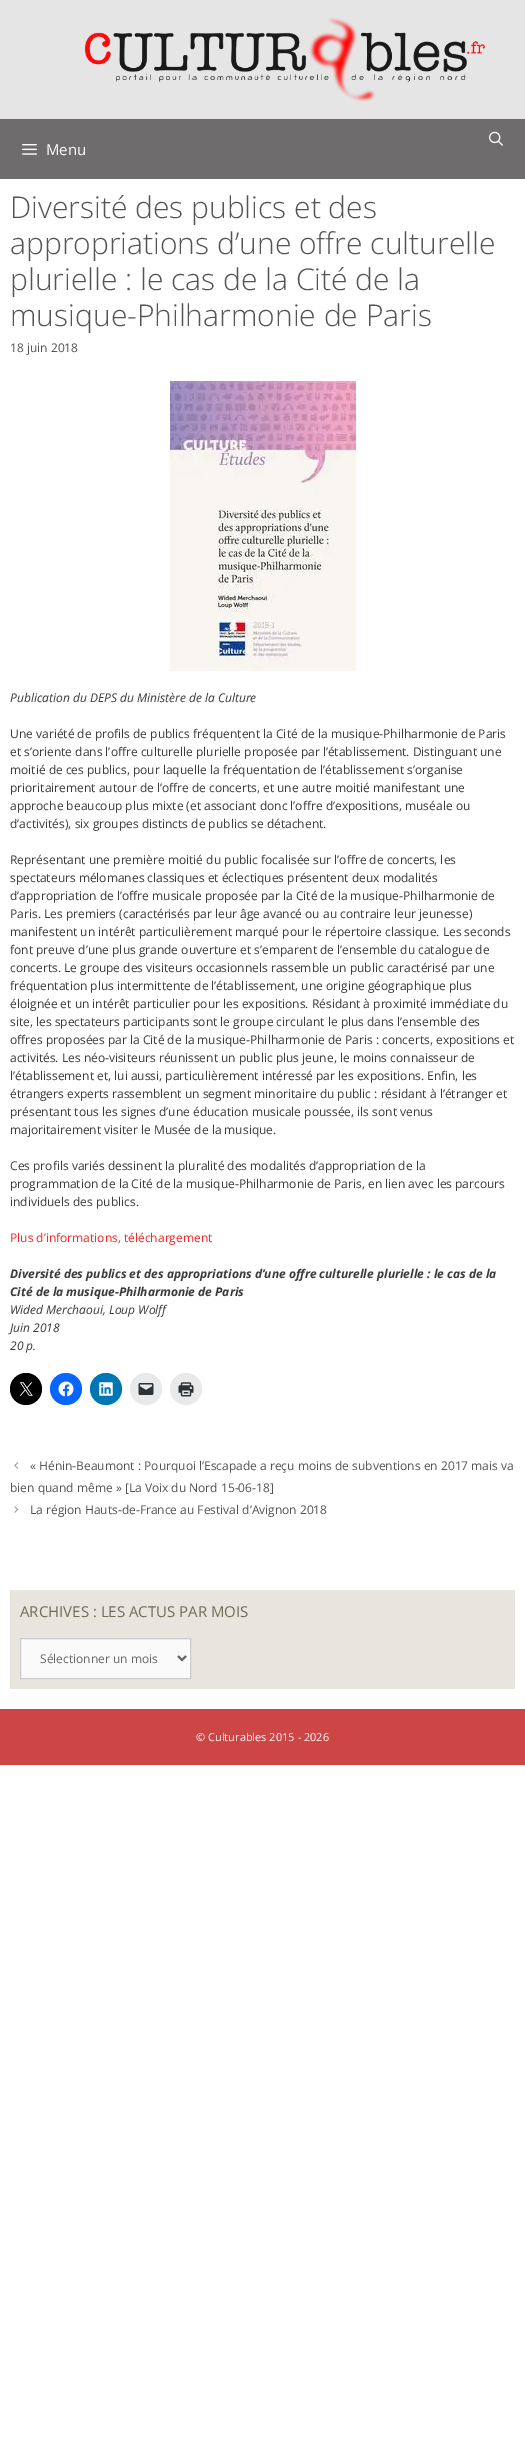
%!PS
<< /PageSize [525 2445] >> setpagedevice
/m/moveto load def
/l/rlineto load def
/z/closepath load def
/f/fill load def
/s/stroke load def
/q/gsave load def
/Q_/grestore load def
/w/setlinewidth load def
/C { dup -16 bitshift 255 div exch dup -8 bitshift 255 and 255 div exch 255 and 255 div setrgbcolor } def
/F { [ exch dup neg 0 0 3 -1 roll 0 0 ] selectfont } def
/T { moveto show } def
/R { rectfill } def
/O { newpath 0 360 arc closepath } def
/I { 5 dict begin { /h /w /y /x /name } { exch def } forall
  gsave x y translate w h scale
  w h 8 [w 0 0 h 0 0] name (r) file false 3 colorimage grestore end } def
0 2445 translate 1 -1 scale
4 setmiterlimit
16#FFFFFF C
0 0 525 2445 R
16#E5E5E5 C
0 0 525 119 R
(1.rgb) 85 17 400 85 I
16#6E6C6C C
0 119 525 60 R
(2.rgb) 489 131 14 15 I
(3.rgb) 22 144 15 11 I
/OpenSans-Regular 15 F
16#FFFFFF C
(Menu) 46 155 T
/OpenSans-Light 30 F
16#545454 C
(Diversité des publics et des) 10 218 T
(appropriations d’une offre culturelle) 10 254 T
(plurielle : le cas de la Cité de la) 10 290 T
(musique-Philharmonie de Paris) 10 326 T
/OpenSans-Regular 12 F
(18 juin 2018) 10 352 T
(4.rgb) 170 381 186 290 I
/OpenSans-Italic 12 F
16#3A3A3A C
(Publication du DEPS du Ministère de la Culture) 10 702 T
/OpenSans-Regular 12 F
(Une variété de profils de publics fréquentent la Cité de la musique-Philharmonie de Paris) 10 738 T
(et s’oriente dans l’offre culturelle plurielle proposée par l’établissement. Distinguant une) 10 756 T
(moitié de ces publics, pour laquelle la fréquentation de l’établissement s’organise) 10 774 T
(prioritairement autour de l’offre de concerts, et une autre moitié manifestant une) 10 792 T
(approche beaucoup plus mixte \(et associant donc l’offre d’expositions, muséale ou) 10 810 T
(d’activités\), six groupes distincts de publics se détachent.) 10 828 T
(Représentant une première moitié du public focalisée sur l’offre de concerts, les) 10 864 T
(spectateurs mélomanes classiques et éclectiques présentent deux modalités) 10 882 T
(d’appropriation de l’offre musicale proposée par la Cité de la musique-Philharmonie de) 10 900 T
(Paris. Les premiers \(caractérisés par leur âge avancé ou au contraire leur jeunesse\)) 10 918 T
(manifestent un intérêt particulièrement marqué pour le répertoire classique. Les seconds) 10 936 T
(font preuve d’une plus grande ouverture et s’emparent de l’ensemble du catalogue de) 10 954 T
(concerts. Le groupe des visiteurs occasionnels rassemble un public caractérisé par une) 10 972 T
(fréquentation plus intermittente de l’établissement, une origine géographique plus) 10 990 T
(éloignée et un intérêt particulier pour les expositions. Résidant à proximité immédiate du) 10 1008 T
(site, les spectateurs participants sont le groupe circulant le plus dans l’ensemble des) 10 1026 T
(offres proposées par la Cité de la musique-Philharmonie de Paris : concerts, expositions et) 10 1044 T
(activités. Les néo-visiteurs réunissent un public plus jeune, le moins connaisseur de) 10 1062 T
(l’établissement et, lui aussi, particulièrement intéressé par les expositions. Enfin, les) 10 1080 T
(étrangers experts rassemblent un segment minoritaire du public : résidant à l’étranger et) 10 1098 T
(présentant tous les signes d’une éducation musicale poussée, ils sont venus) 10 1116 T
(majoritairement visiter le Musée de la musique.) 10 1134 T
(Ces profils variés dessinent la pluralité des modalités d’appropriation de la) 10 1170 T
(programmation de la Cité de la musique-Philharmonie de Paris, en lien avec les parcours) 10 1188 T
(individuels des publics.) 10 1206 T
16#F82525 C
(Plus d’informations, téléchargement) 10 1242 T
/OpenSans-BoldItalic 12 F
16#3A3A3A C
(Diversité des publics et des appropriations d’une offre culturelle plurielle : le cas de la) 10 1278 T
(Cité de la musique-Philharmonie de Paris) 10 1296 T
/OpenSans-Italic 12 F
(Wided Merchaoui, Loup Wolff) 10 1314 T
(Juin 2018) 10 1332 T
(20 p.) 10 1350 T
16#000000 C
26 1389 16 O f
(5.rgb) 19 1382 14 14 I
16#0866FF C
66 1389 16 O f
(6.rgb) 58 1381 16 16 I
16#0077B5 C
106 1389 16 O f
(7.rgb) 99 1382 14 14 I
16#E9E9E9 C
146 1389 16 O f
(8.rgb) 138 1383 16 12 I
186 1389 16 O f
(9.rgb) 178 1382 16 15 I
(10.rgb) 14 1462 5 7 I
/OpenSans-Regular 12 F
16#545454 C
(« Hénin-Beaumont : Pourquoi l’Escapade a reçu moins de subventions en 2017 mais va) 30 1470 T
(bien quand même » [La Voix du Nord 15-06-18]) 10 1492 T
(11.rgb) 14 1506 5 7 I
(La région Hauts-de-France au Festival d’Avignon 2018) 30 1514 T
16#E7E5DE C
10 1590 505 99 R
/OpenSans-Regular 15 F
16#726D59 C
(ARCHIVES : LES ACTUS PAR MOIS) 20 1617 T
16#FAFAFA C
20.5 1638.5 m 170 0 l 0 40 l -170 0 l z q f Q_
16#CCCCCC C
s
16#666666 C
2 w
178 1656 m 4 4 l 4 -4 l s
/OpenSans-Regular 12 F
(Sélectionner un mois) 40 1663 T
16#CD4545 C
0 1709 525 56 R
/OpenSans-Regular 11 F
16#FFFFFF C
(© Culturables 2015 - 2026) 196 1741 T
showpage
